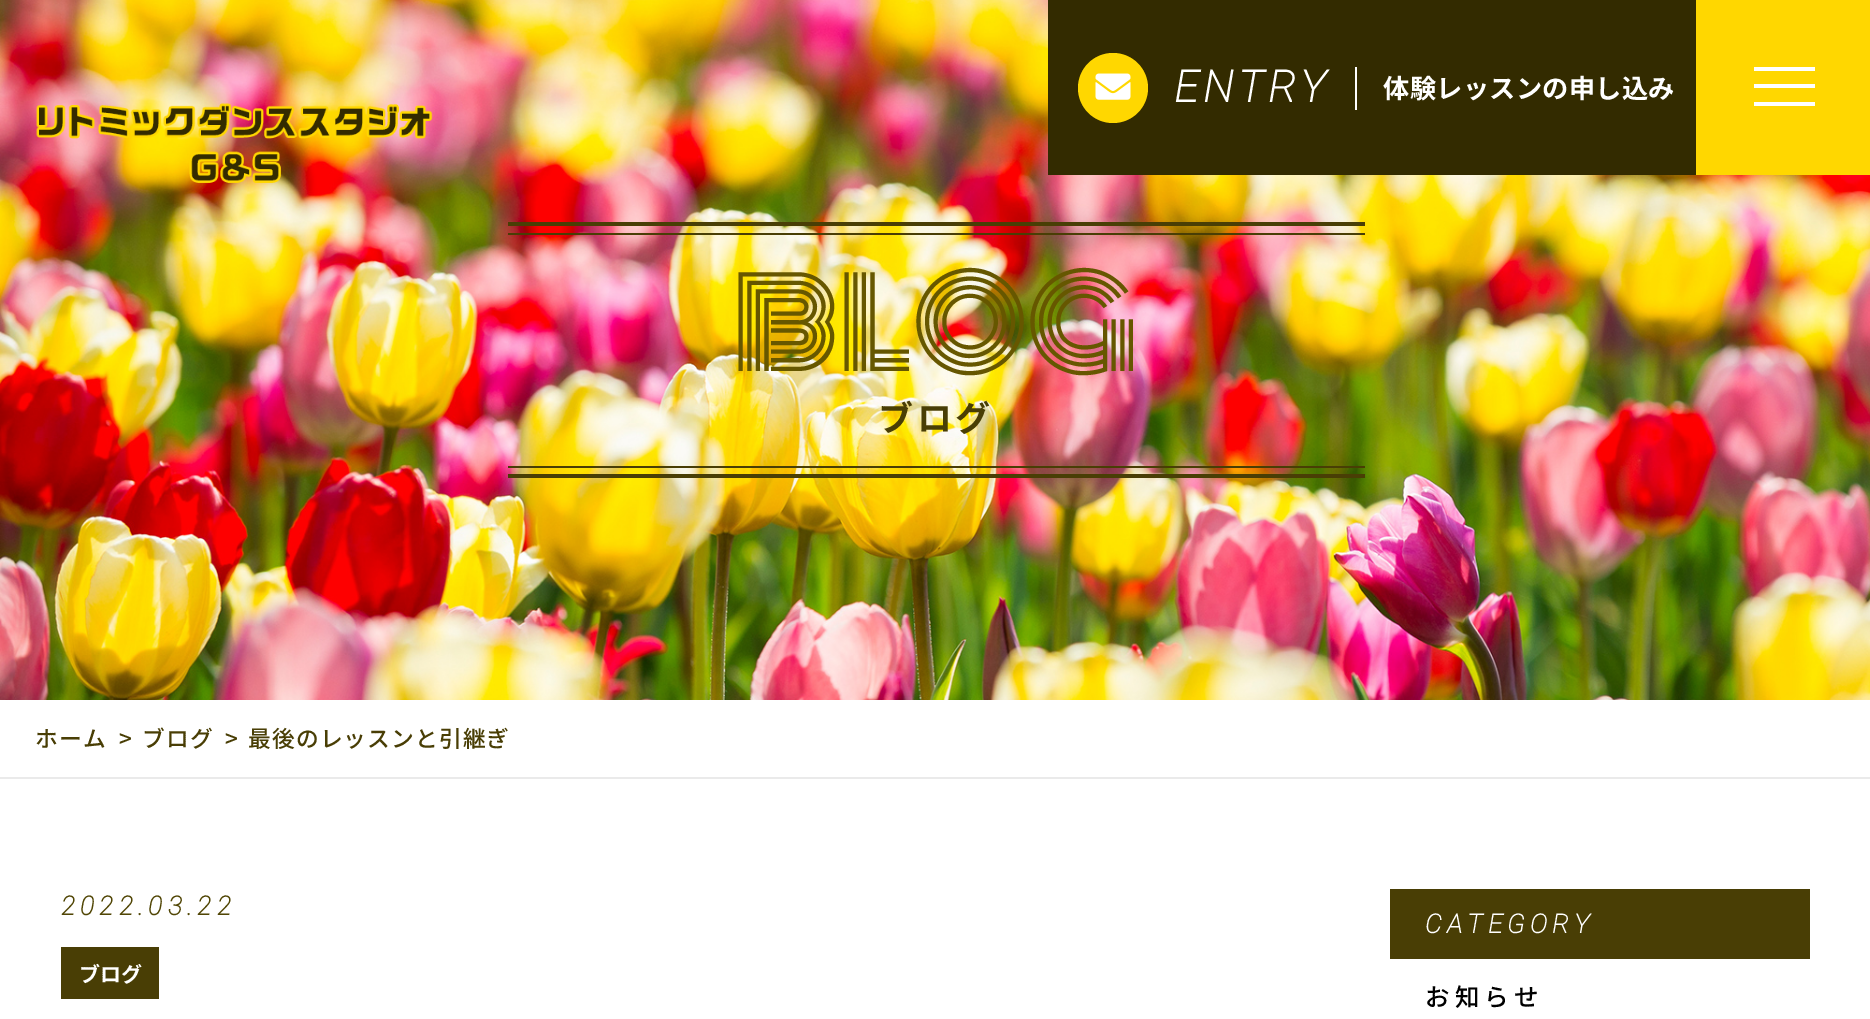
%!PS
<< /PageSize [1870 1019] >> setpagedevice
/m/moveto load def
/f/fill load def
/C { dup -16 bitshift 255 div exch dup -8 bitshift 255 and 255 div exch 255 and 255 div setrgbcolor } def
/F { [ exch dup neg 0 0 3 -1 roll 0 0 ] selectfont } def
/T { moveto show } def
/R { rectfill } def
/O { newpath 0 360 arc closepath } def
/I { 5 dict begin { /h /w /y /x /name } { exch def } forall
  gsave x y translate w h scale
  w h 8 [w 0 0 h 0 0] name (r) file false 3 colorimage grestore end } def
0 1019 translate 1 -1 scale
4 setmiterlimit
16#FFFFFF C
0 0 1870 1019 R
(3.rgb) 0 0 1870 700 I
16#332B00 C
1048 0 648 175 R
16#FFD700 C
1113 88 35 O f
(1.rgb) 1095 73 36 27 I
16#FFFFFF C
1355 67 2 43 R
/Roboto-BoldItalic 44 F
1174 102 m 4.5 0 (ENTRY) ashow
/NotoSansJP-Bold 26.25 F
1383 98 m .25 0 (体験レッスンの申し込み) ashow
16#FFD700 C
1696 0 174 175 R
16#FFFFFF C
1754 84 61 4 R
1754 67 61 4 R
1754 102 61 4 R
(2.rgb) 36 103 397 80 I
16#493E05 C
508 222 857 4 R
508 474 857 4 R
508 233 857 2 R
508 466 857 2 R
/Monoton-Regular 122.5 F
16#665700 C
(BLOG) 733 371 T
/NotoSansJP-Bold 35 F
16#493E05 C
878 431 m 3.5 0 (ブログ) ashow
16#EAEAEA C
0 777 1870 2 R
/NotoSansJP-Medium 22.75 F
16#493E05 C
35 747 m 1.1 0 (ホーム) ashow
119 747 m 1.1 0 (>) ashow
142 747 m 1.1 0 (ブログ) ashow
225 747 m 1.1 0 (>) ashow
248 747 m 1.1 0 (最後のレッスンと引継ぎ) ashow
/Roboto-BoldItalic 26.25 F
16#514605 C
61 915 m 5.25 0 (2022.03.22) ashow
16#493E05 C
61 947 98 52 R
/NotoSansJP-Bold 21 F
16#FFFFFF C
(ブログ) 79 982 T
16#493E05 C
1390 889 420 70 R
/Roboto-BoldItalic 26.25 F
16#FFFFFF C
1425 933 m 5.25 0 (CATEGORY) ashow
/NotoSansJP-Medium 24.5 F
16#000000 C
1425 1006 m 5 0 (お知らせ) ashow
showpage
